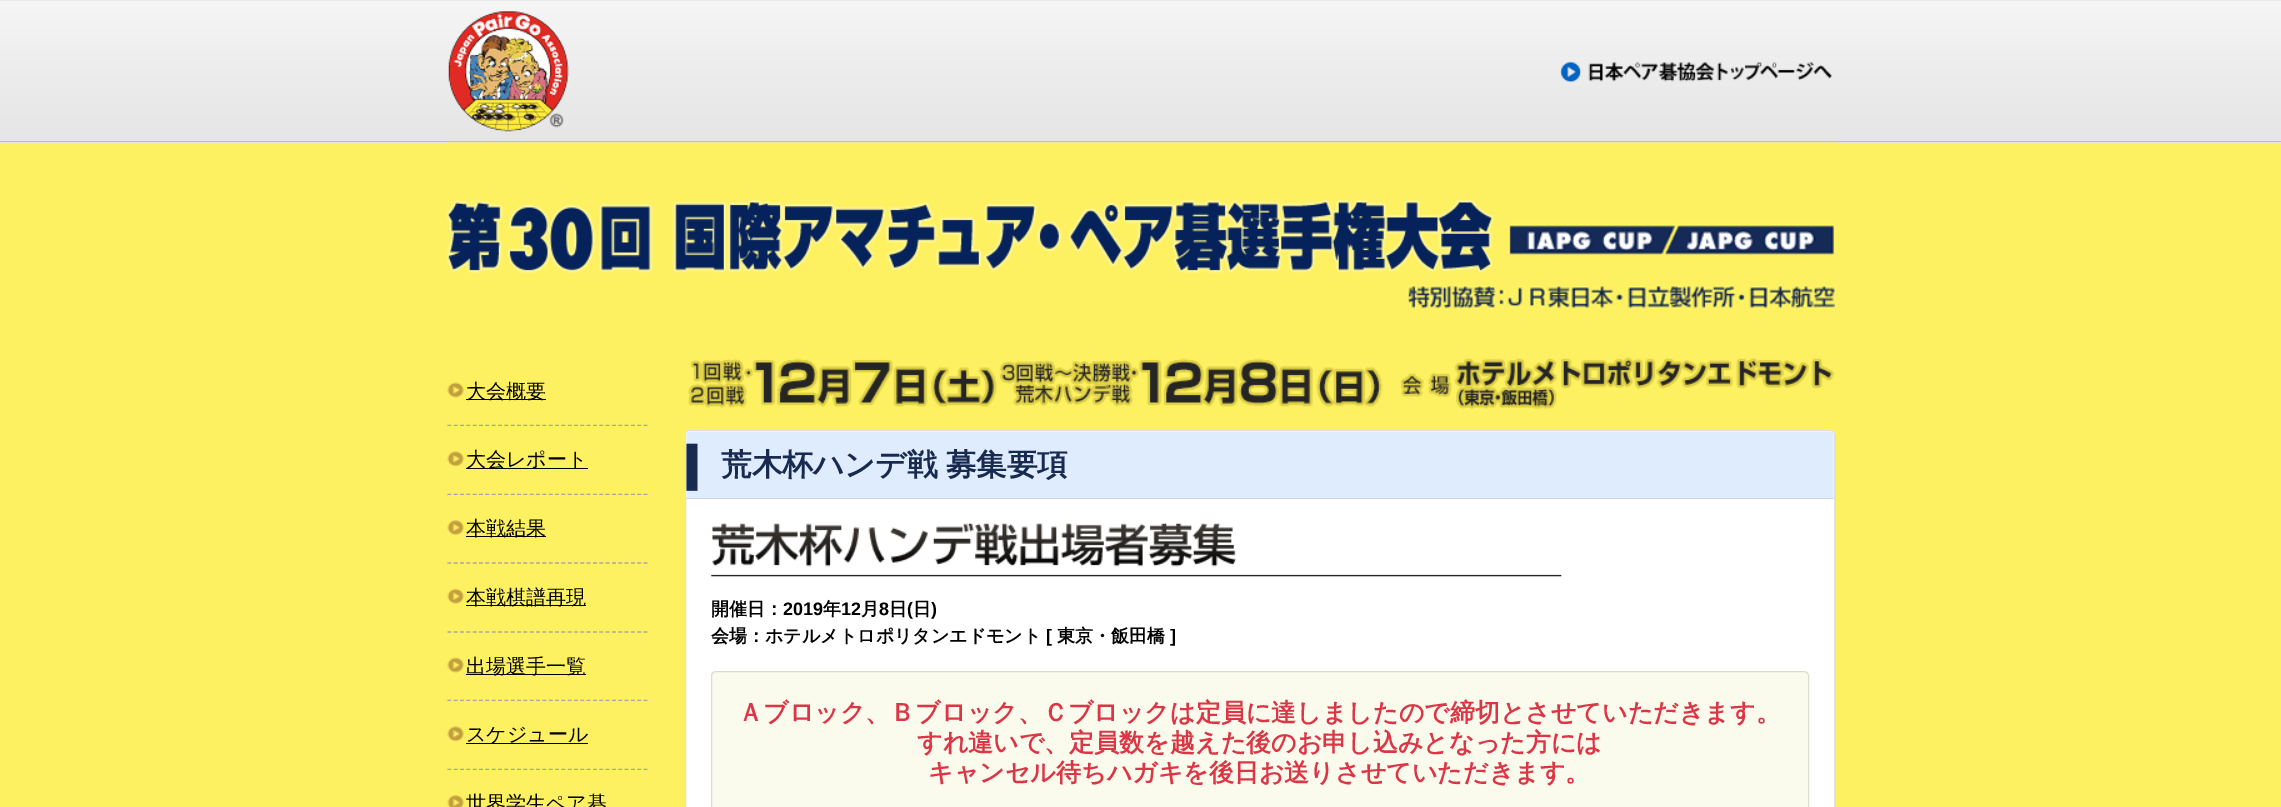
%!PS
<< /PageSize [2281 807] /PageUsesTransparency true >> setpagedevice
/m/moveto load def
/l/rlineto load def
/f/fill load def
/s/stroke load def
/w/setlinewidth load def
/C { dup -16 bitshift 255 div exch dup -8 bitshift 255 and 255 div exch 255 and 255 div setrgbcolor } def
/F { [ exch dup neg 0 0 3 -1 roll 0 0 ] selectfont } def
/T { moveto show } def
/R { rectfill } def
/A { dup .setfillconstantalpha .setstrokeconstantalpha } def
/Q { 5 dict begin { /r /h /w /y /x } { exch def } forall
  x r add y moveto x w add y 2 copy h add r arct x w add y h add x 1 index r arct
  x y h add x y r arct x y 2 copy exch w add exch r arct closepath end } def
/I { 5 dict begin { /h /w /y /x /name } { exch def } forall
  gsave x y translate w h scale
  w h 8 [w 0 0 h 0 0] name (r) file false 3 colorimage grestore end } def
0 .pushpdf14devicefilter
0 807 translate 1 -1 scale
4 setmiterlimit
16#FDF162 C
0 0 2281 807 R
16#F8F9FA C
0 142 2281 1 R
(1.rgb) 0 0 2281 143 I
(2.rgb) 448 11 121 121 I
(3.rgb) 1560 61 273 22 I
(4.rgb) 447 142 1388 168 I
16#A7A79D C
1.2 w
[3.75 2.58] 0 setdash
447.5 425.5 m 200 0 l s
(5.rgb) 447 382 17 16 I
16#000000 C
466 399 80 1 R
/WenQuanYiZenHei-Medium 20 F
(大会概要) 466 398 T
16#FDF162 C
448 426 200 1 R
16#A7A79D C
447.5 494.5 m 200 0 l s
(6.rgb) 447 451 17 16 I
16#000000 C
466 468 122 1 R
(大会レポート) 466 466 T
16#FDF162 C
448 495 200 1 R
16#A7A79D C
447.5 563 m 200 0 l s
(7.rgb) 447 520 17 15 I
16#000000 C
466 536 80 1 R
(本戦結果) 466 535 T
16#A7A79D C
447.5 632 m 200 0 l s
(8.rgb) 447 588 17 16 I
16#000000 C
466 605 120 1 R
(本戦棋譜再現) 466 604 T
16#A7A79D C
447.5 700.5 m 200 0 l s
(5.rgb) 447 657 17 16 I
16#000000 C
466 674 120 1 R
(出場選手一覧) 466 673 T
16#FDF162 C
448 701 200 1 R
16#A7A79D C
447.5 769.5 m 200 0 l s
(6.rgb) 447 726 17 16 I
16#000000 C
466 743 122 1 R
(スケジュール) 466 741 T
16#FDF162 C
448 770 200 1 R
(9.rgb) 447 795 17 12 I
16#000000 C
(世界学生ペア碁) 466 810 T
(10.rgb) 688 357 1146 52 I
16#FFFFFF C
685 430 1150 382 5 Q f
0.12 A
16#000000 C
1 w
[] 0 setdash
685.5 430.5 1149 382 4.5 Q s
1 A
(11.rgb) 686 431 1148 68 I
0.12 A
686 498 1148 1 R
/WenQuanYiZenHei-Bold 30.6 F
1 A
16#182A50 C
721 475 m -1 0 32 (荒木杯ハンデ戦 募集要項) widthshow
(12.rgb) 711 523 851 54 I
/WenQuanYiZenHei-Bold 18 F
16#000000 C
(開催日：) 711 615 T
/LiberationSans-Bold 18 F
(2019) 783 615 T
/WenQuanYiZenHei-Bold 18 F
(年) 823 615 T
/LiberationSans-Bold 18 F
(12) 841 615 T
/WenQuanYiZenHei-Bold 18 F
(月) 861 615 T
/LiberationSans-Bold 18 F
(8) 879 615 T
/WenQuanYiZenHei-Bold 18 F
(日) 889 615 T
/LiberationSans-Bold 18 F
(\() 907 615 T
/WenQuanYiZenHei-Bold 18 F
(日) 913 615 T
/LiberationSans-Bold 18 F
(\)) 931 615 T
/WenQuanYiZenHei-Bold 18 F
(会場：ホテルメトロポリタンエドモント) 711 642 T
/LiberationSans-Bold 18 F
([) 1046 642 T
/WenQuanYiZenHei-Bold 18 F
(東京・飯田橋) 1057 642 T
/LiberationSans-Bold 18 F
(]) 1170 642 T
16#FAFBED C
711 671 1098 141 5 Q f
0.12 A
16#000000 C
711.5 671.5 1097 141 4.5 Q s
/WenQuanYiZenHei-Bold 25 F
1 A
16#DC3545 C
(Ａブロック、Ｂブロック、Ｃブロックは定員に達しましたので締切とさせていただきます。) 738 721 T
(すれ違いで、定員数を越えた後のお申し込みとなった方には) 917 751 T
(キャンセル待ちハガキを後日お送りさせていただきます。) 928 781 T
.poppdf14devicefilter showpage
